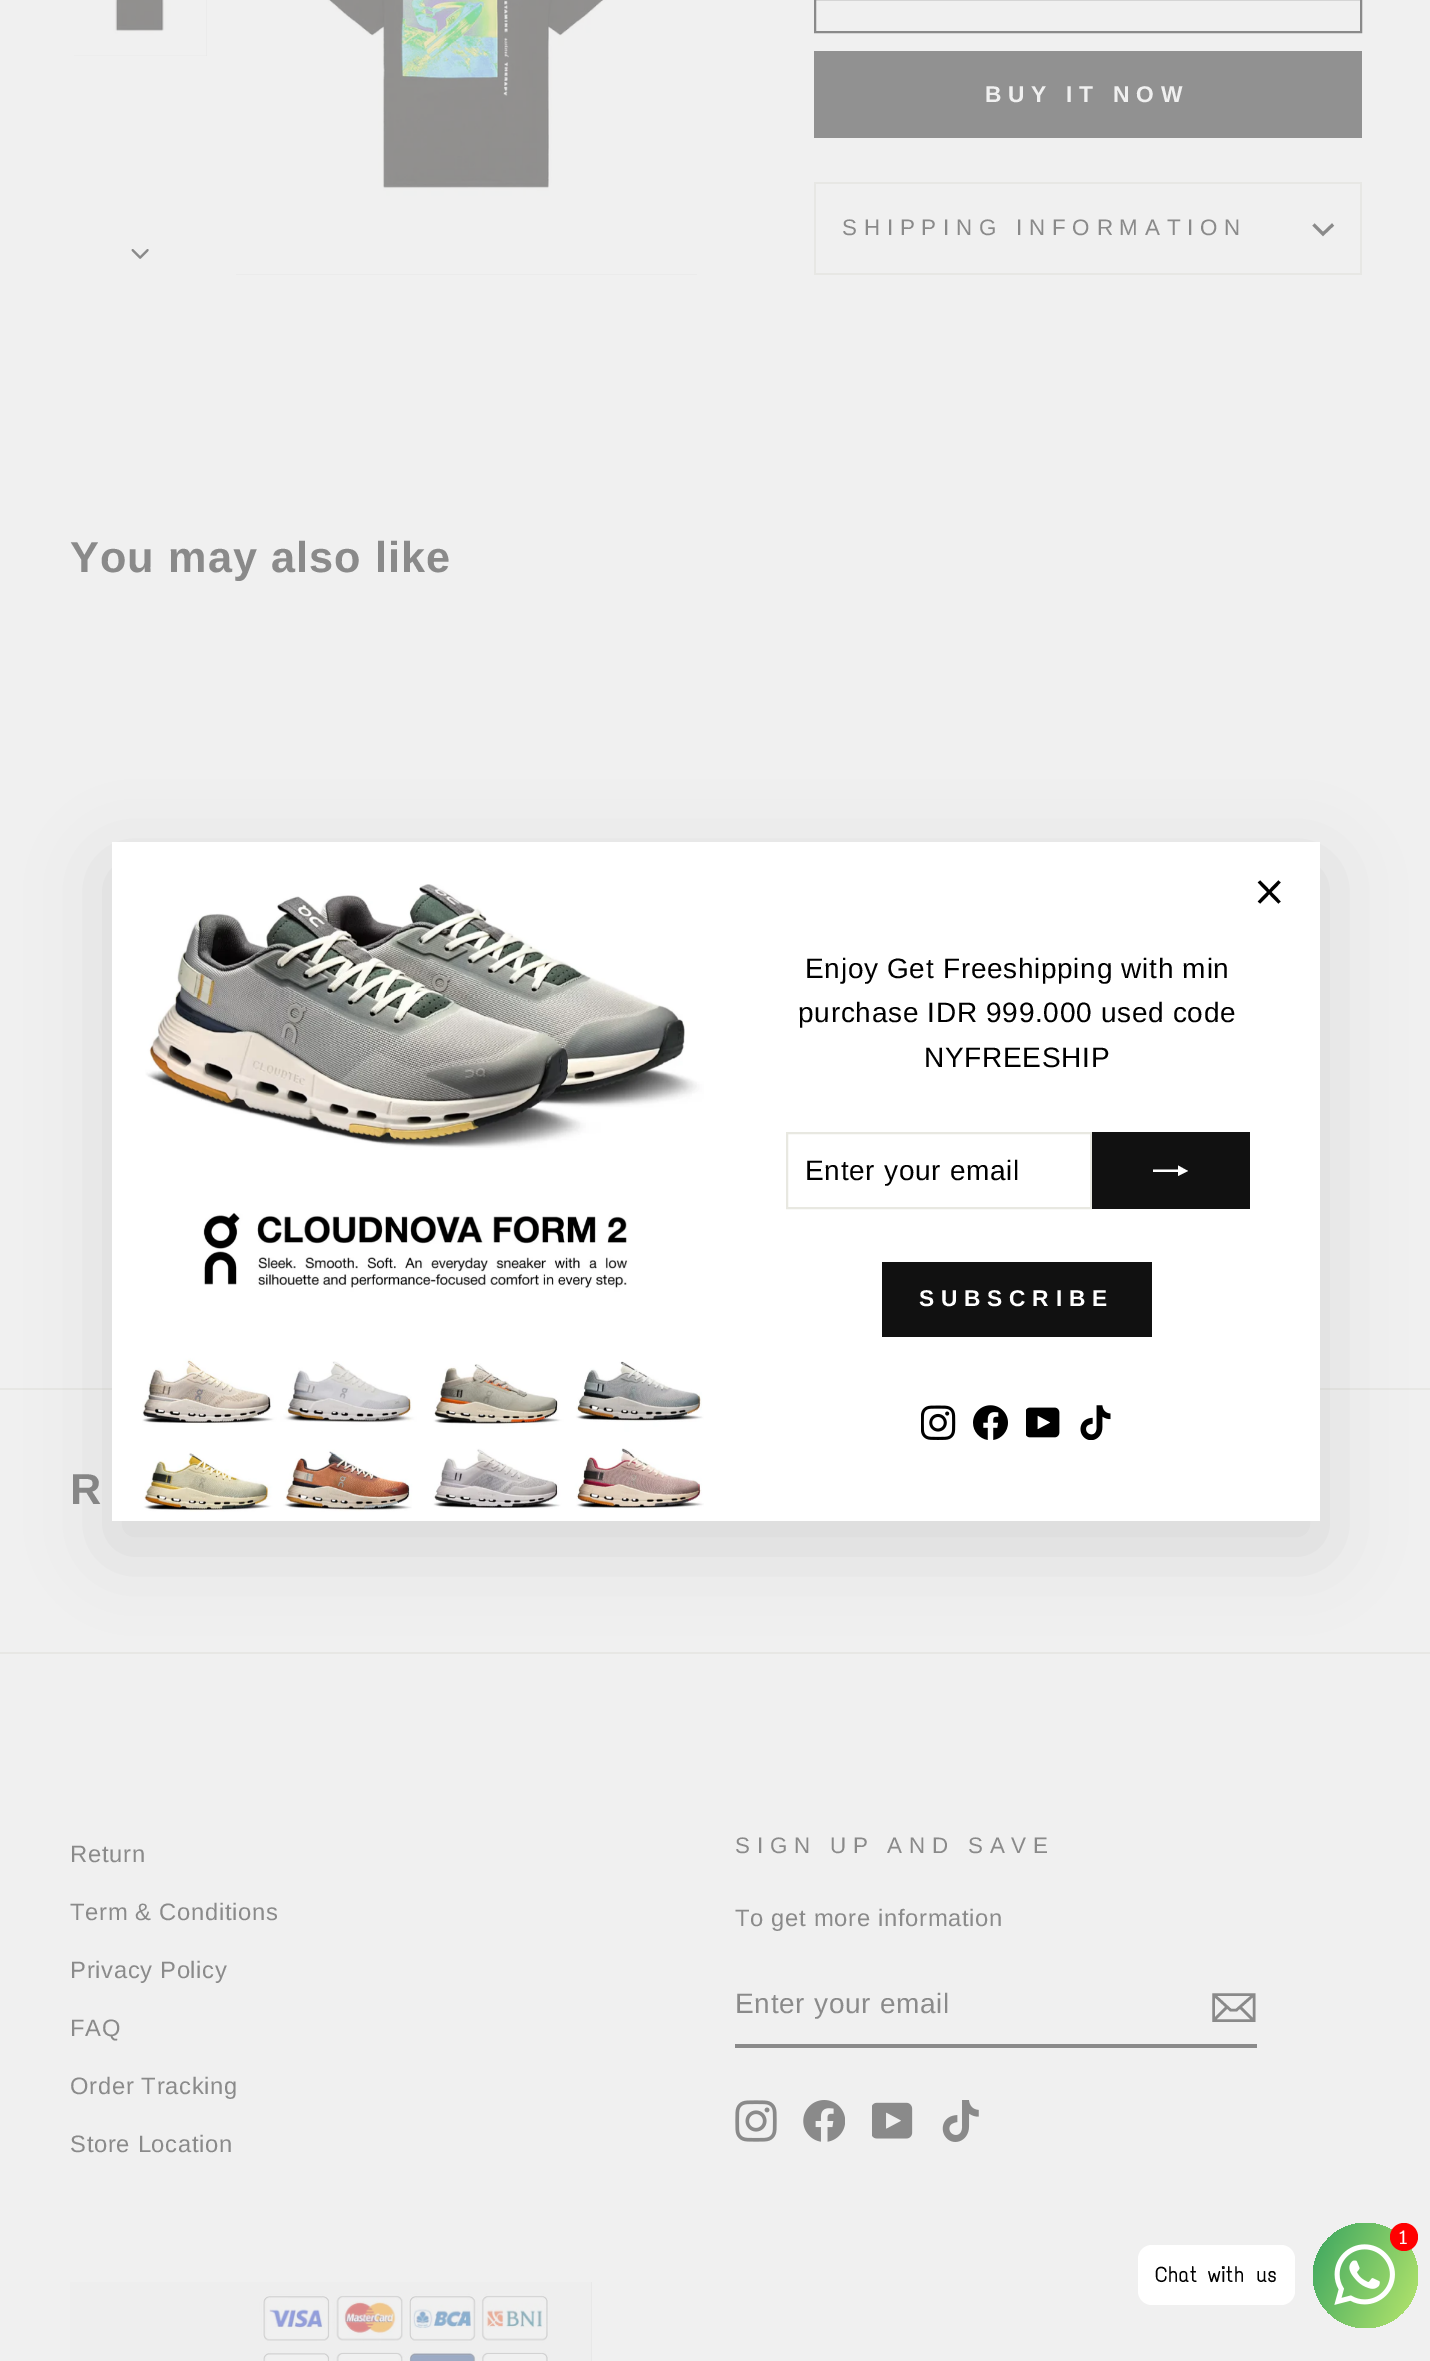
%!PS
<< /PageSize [1430 2361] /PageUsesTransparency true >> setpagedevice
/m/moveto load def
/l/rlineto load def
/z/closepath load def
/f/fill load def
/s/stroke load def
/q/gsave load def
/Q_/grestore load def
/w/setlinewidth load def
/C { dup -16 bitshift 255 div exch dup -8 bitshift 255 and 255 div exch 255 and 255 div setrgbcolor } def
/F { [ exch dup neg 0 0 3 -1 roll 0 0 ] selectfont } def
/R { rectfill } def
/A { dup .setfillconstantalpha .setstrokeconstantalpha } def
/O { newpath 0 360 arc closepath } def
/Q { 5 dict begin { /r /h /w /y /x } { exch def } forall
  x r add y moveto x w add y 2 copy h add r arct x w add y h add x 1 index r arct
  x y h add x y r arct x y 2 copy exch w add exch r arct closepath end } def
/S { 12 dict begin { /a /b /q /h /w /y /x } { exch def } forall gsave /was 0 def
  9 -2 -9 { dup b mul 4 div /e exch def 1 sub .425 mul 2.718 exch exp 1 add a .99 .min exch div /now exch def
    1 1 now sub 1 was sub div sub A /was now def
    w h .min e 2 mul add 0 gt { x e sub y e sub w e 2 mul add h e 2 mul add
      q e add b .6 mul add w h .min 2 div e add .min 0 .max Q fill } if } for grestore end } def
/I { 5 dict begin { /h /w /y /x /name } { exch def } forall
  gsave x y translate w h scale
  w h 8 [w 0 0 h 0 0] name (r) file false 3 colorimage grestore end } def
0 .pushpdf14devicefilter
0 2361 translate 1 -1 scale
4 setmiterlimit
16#F0F0F0 C
0 0 1430 2361 R
16#E6E6E6 C
74 0 133 56 R
(1.rgb) 74 0 133 56 I
(2.rgb) 131 249 18 10 I
236 274 461 1 R
(3.rgb) 236 0 461 275 I
16#8A8A8A C
2 w
815 -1 546 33 rectstroke
16#919191 C
814 51 548 87 R
/Arimo-Bold 22.75 F
16#F0F0F0 C
985 102 m 6.75 0 (BUY IT NOW) ashow
16#E7E7E4 C
814 273 548 2 R
814 182 548 2 R
1360 182 2 91 R
814 182 2 91 R
/Arimo-Regular 22.4 F
16#8A8A8A C
842 235 m 6.75 0 (SHIPPING INFORMATION) ashow
3 w
1313.5 224.5 m 9.5 9.5 l 10 -9.5 l s
/Arimo-Bold 43.25 F
70 572 m 1.1 0 (You may also like) ashow
16#E7E7E4 C
0 1388 1430 2 R
16#8A8A8A C
70 1504 m 1.1 0 (R) ashow
16#E7E7E4 C
0 1652 1430 2 R
16#000000 C
112 868 1208 679 0 39.5 .1 S
16#FFFFFF C
112 842 1208 679 R
16#000000 C
3.1 w
1259 881.5 m 20.5 21 l 1279.5 881.5 m -20.5 21 l s
(4.rgb) 142 884 562 628 I
/Arimo-Regular 28 F
805 978 m .7 0 (Enjoy Get Freeshipping with min) ashow
798 1022 m .7 0 (purchase IDR 999.000 used code) ashow
924 1067 m .7 0 (NYFREESHIP) ashow
16#E8E8E1 C
2 w
787 1133 304 75 rectstroke
16#000000 C
805 1180 m .7 0 (Enter your email) ashow
16#111111 C
1092 1132 158 77 R
16#FFFFFF C
1153 1172 m 0 -2.5 l 25 0 l 0 -4 l 10 5.5 l -10 5 l 0 -4 l z f
16#111111 C
882 1262 270 75 R
/Arimo-Bold 22.75 F
16#FFFFFF C
919 1306 m 6.75 0 (SUBSCRIBE) ashow
(5.rgb) 921 1405 35 35 I
(6.rgb) 973 1405 35 35 I
(7.rgb) 1026 1407 34 31 I
(8.rgb) 1080 1405 31 35 I
/Arimo-Regular 23.75 F
16#8A8A8A C
70 1862 m .7 0 (Return) ashow
70 1920 m .7 0 (Term & Conditions) ashow
70 1978 m .7 0 (Privacy Policy) ashow
70 2036 m .7 0 (FAQ) ashow
70 2094 m .7 0 (Order Tracking) ashow
70 2152 m .7 0 (Store Location) ashow
/Arimo-Regular 22.4 F
735 1853 m 6.75 0 (SIGN UP AND SAVE) ashow
/Arimo-Regular 23.75 F
735 1926 m .7 0 (To get more information) ashow
735 2044 522 4 R
/Arimo-Regular 28 F
735 2013 m .7 0 (Enter your email) ashow
2.6 w
1254 2020.5 m -40.5 0 l 0 -26 l 40.5 0 l z 1213.5 1994.5 m 17 15.5 l 6 0 l 17.5 -15.5 l 1227 2007 m -13 13 l 1253.5 2020.5 m -13.5 -13.5 l s
(9.rgb) 735 2100 42 42 I
(10.rgb) 803 2100 42 42 I
(11.rgb) 872 2102 41 37 I
(12.rgb) 942 2100 37 42 I
16#E6E6E6 C
591 2282 1 79 R
(13.rgb) 70 2282 522 79 I
q 1365.5 2275.5 52.5 O clip newpath
<< /ShadingType 2 /ColorSpace /DeviceRGB /Coords [1302 2246 1428 2304] /Extend [true true] /Function << /FunctionType 2 /Domain [0 1] /C0 [.227 .647 .376] /C1 [.718 .902 .424] /N 1 >> >> shfill Q_
(14.rgb) 1334 2244 61 61 I
16#FF0000 C
1404 2237 14 O f
/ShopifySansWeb-Regular 19 F
16#FFFFFF C
1399 2244 m .7 0 (1) ashow
1138 2245 157 60 14 Q f
/TextMeOne-Bold 21 F
16#000000 C
1155 2282 m .7 0 (Chat with us) ashow
.poppdf14devicefilter showpage
